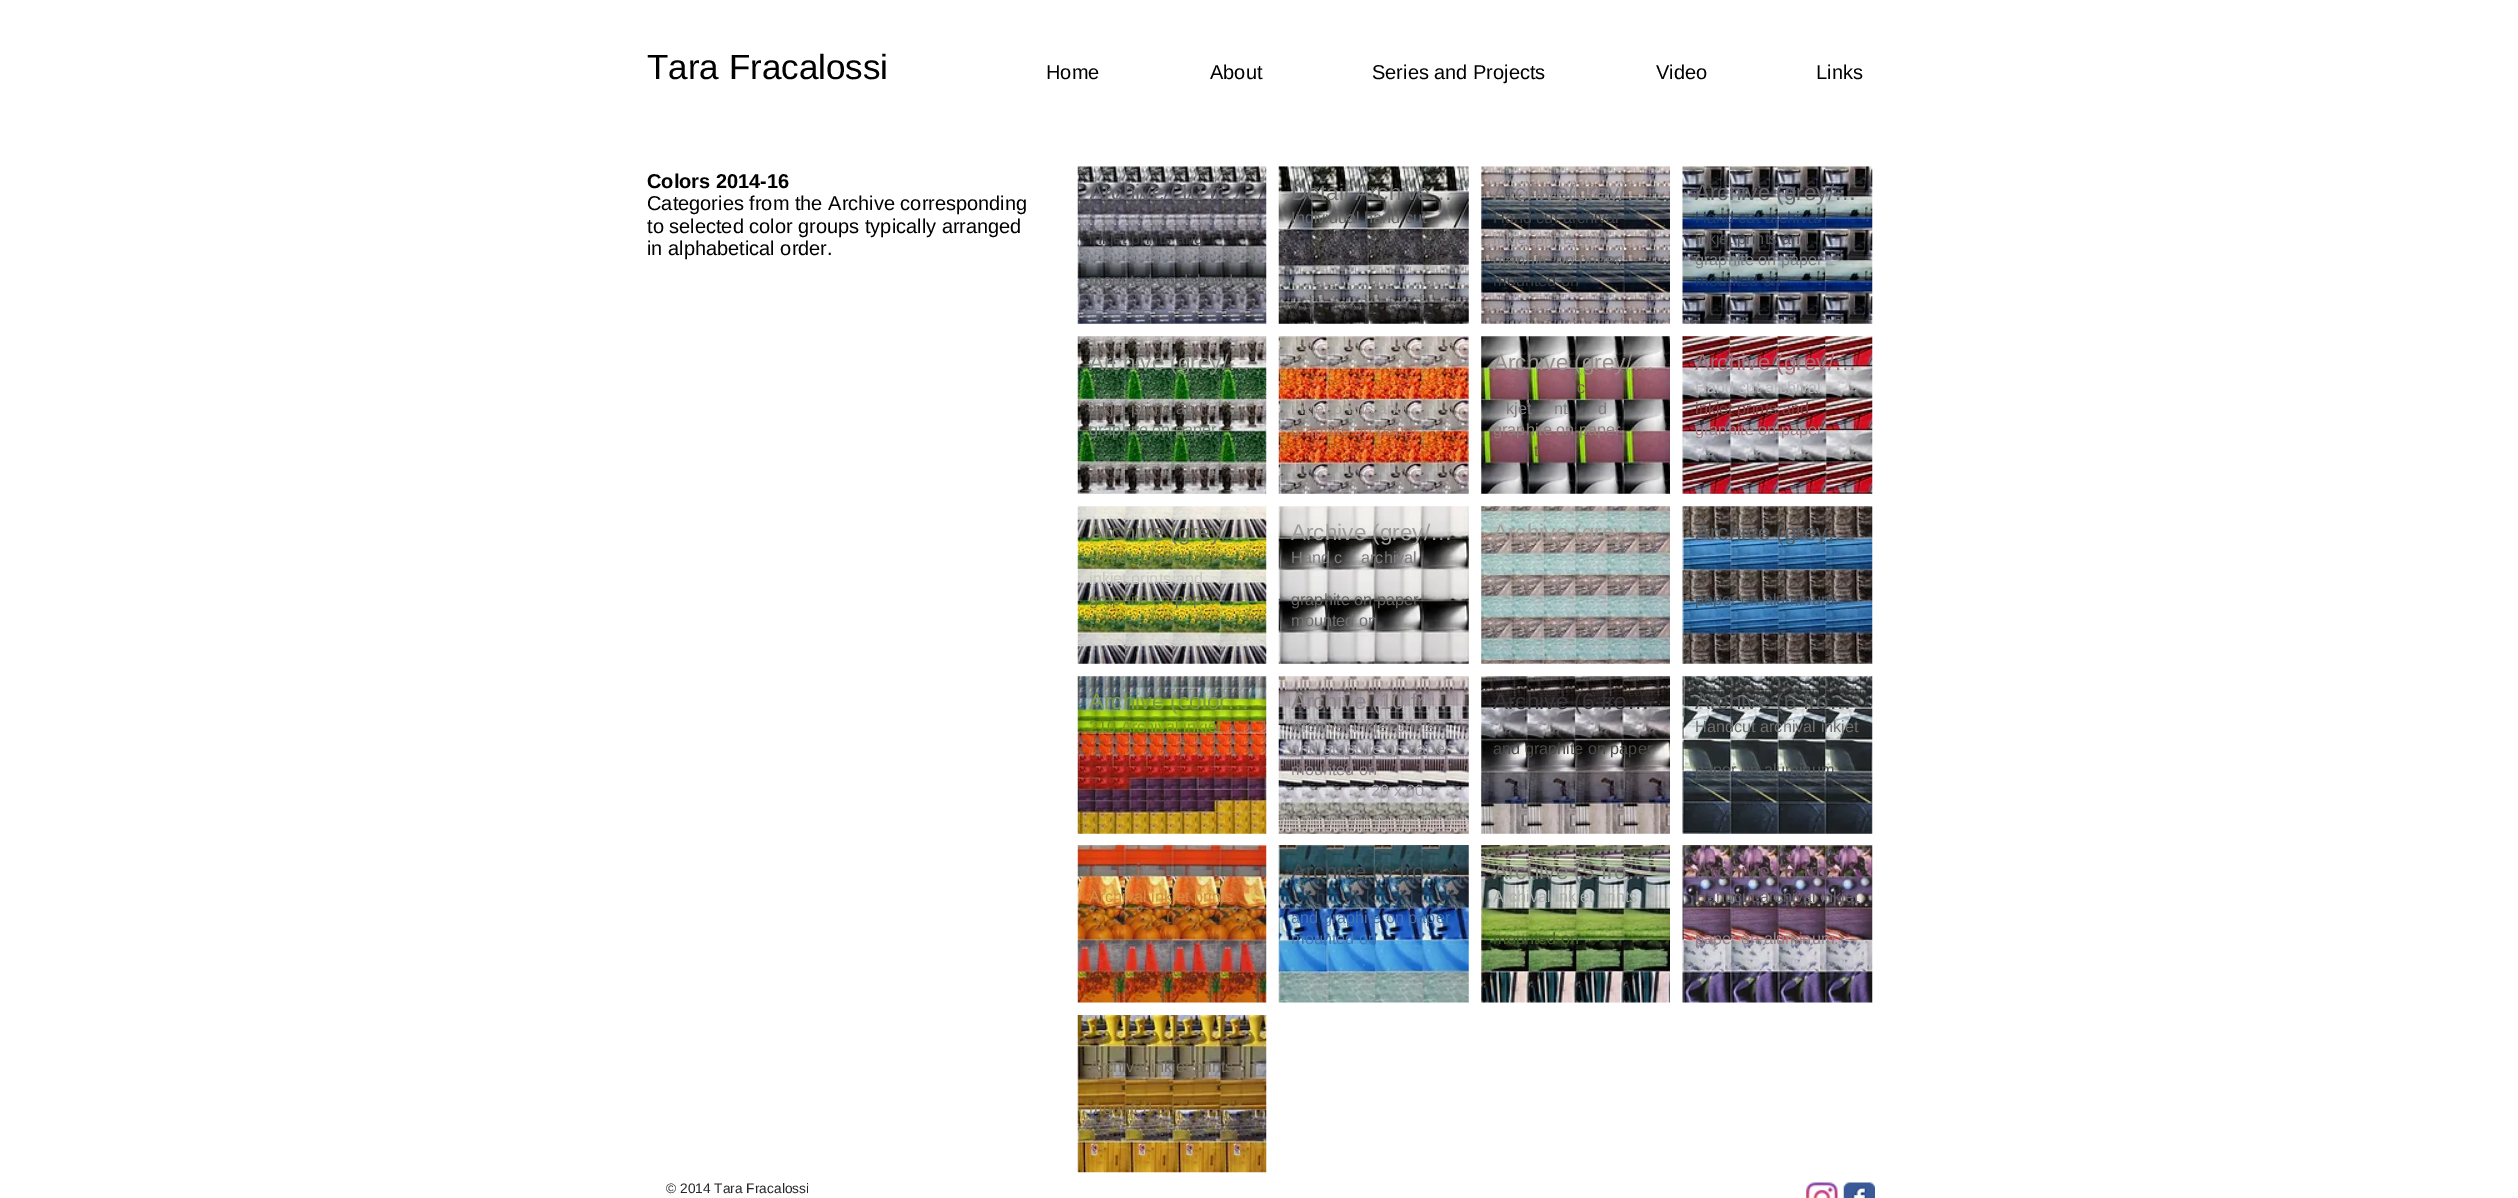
%!PS
<< /PageSize [2518 1198] >> setpagedevice
/q/gsave load def
/Q_/grestore load def
/C { dup -16 bitshift 255 div exch dup -8 bitshift 255 and 255 div exch 255 and 255 div setrgbcolor } def
/F { [ exch dup neg 0 0 3 -1 roll 0 0 ] selectfont } def
/T { moveto show } def
/R { rectfill } def
/I { 5 dict begin { /h /w /y /x /name } { exch def } forall
  gsave x y translate w h scale
  w h 8 [w 0 0 h 0 0] name (r) file false 3 colorimage grestore end } def
0 1198 translate 1 -1 scale
4 setmiterlimit
16#FFFFFF C
0 0 2518 1198 R
/LiberationSans-Regular 35 F
16#000000 C
(Tara Fracalossi) 647 79 T
/LiberationSans-Regular 20 F
(Home) 1046 79 T
(About) 1210 79 T
(Series and Projects) 1372 79 T
(Video) 1656 79 T
(Links) 1816 79 T
/LiberationSans-Bold 20 F
(Colors 2014-16) 647 188 T
/LiberationSans-Regular 20 F
(Categories from the Archive corresponding) 647 210 T
(to selected color groups typically arranged) 647 233 T
(in alphabetical order.) 647 255 T
(1.rgb) 1077 166 190 158 I
/LiberationSans-Regular 22.5 F
16#67666D C
(Archive \(10 fr…) 1089 200 T
/LiberationSans-Regular 16.25 F
16#3E3E42 C
(inkjet prints and) 1089 244 T
16#67666D C
(mounted on di-bond.) 1089 286 T
(2.rgb) 1278 166 191 158 I
/LiberationSans-Regular 22.5 F
16#6F706F C
(Detail Archive…) 1291 200 T
/LiberationSans-Regular 16.25 F
16#646667 C
(Individual hand cut) 1291 223 T
(3.rgb) 1481 166 189 158 I
/LiberationSans-Regular 22.5 F
16#807B7E C
(Archive\(grey/…) 1493 200 T
/LiberationSans-Regular 16.25 F
16#3F4349 C
(Hand cut archival) 1493 223 T
16#989194 C
(inkjet prints and) 1493 244 T
q
1494 208 164 80 rectclip
16#6F706F C
(graphite on paper) 1493 265 T
Q_
16#363C43 C
(mounted on) 1493 286 T
(4.rgb) 1682 166 191 158 I
/LiberationSans-Regular 22.5 F
16#67666D C
(Archive \(grey/…) 1695 200 T
/LiberationSans-Regular 16.25 F
16#233F6C C
(Hand cut archival) 1695 223 T
16#505055 C
(inkjet prints and) 1695 244 T
16#7A8083 C
(graphite on paper) 1695 265 T
16#213961 C
(mounted on) 1695 286 T
(5.rgb) 1077 336 190 158 I
/LiberationSans-Regular 22.5 F
16#888F86 C
(Archive \(grey/…) 1089 370 T
/LiberationSans-Regular 16.25 F
16#706A67 C
(inkjet prints and) 1089 414 T
16#748776 C
(graphite on paper) 1089 435 T
(6.rgb) 1278 336 191 158 I
16#A59E9A C
(inkjet prints and) 1291 414 T
16#B07964 C
(graphite on paper) 1291 435 T
(7.rgb) 1481 336 189 158 I
/LiberationSans-Regular 22.5 F
16#958E8A C
(Archive \(grey/…) 1493 370 T
/LiberationSans-Regular 16.25 F
16#88585A C
(c) 1577 393 T
16#807B7E C
(kjet) 1506 414 T
(nt) 1554 414 T
(d) 1598 414 T
q
1494 378 164 80 rectclip
16#907F7B C
(graphite on paper) 1493 435 T
Q_
16#7D5453 C
(t) 1534 456 T
(8.rgb) 1682 336 191 158 I
/LiberationSans-Regular 22.5 F
16#A76F79 C
(Archive \(grey/…) 1695 370 T
/LiberationSans-Regular 16.25 F
16#B6B7BB C
(Hand cut archival) 1695 393 T
16#7E4345 C
(inkjet prints and) 1695 414 T
16#A77E86 C
(graphite on paper) 1695 435 T
(9.rgb) 1077 506 190 158 I
/LiberationSans-Regular 22.5 F
16#6F755A C
(Archive \(grey/…) 1089 540 T
/LiberationSans-Regular 16.25 F
16#728435 C
(Hand cut archival) 1089 563 T
16#C8C8C2 C
(inkjet prints and) 1089 584 T
16#6B773C C
(graphite on paper) 1089 605 T
(10.rgb) 1278 506 191 158 I
/LiberationSans-Regular 22.5 F
16#9D9C9A C
(Archive \(grey/…) 1291 540 T
/LiberationSans-Regular 16.25 F
16#807B7E C
(Hand c) 1291 563 T
(archival) 1361 563 T
16#626160 C
(graphite on paper) 1291 605 T
16#6F706F C
(mounted on) 1291 626 T
(11.rgb) 1481 506 189 158 I
/LiberationSans-Regular 22.5 F
16#A59E9A C
(Archive \(grey …) 1493 540 T
(12.rgb) 1682 506 191 158 I
16#555C63 C
(Archive \(grey,…) 1695 540 T
/LiberationSans-Regular 16.25 F
16#564D48 C
(i) 1709 584 T
16#485C6F C
(paper on aluminum.) 1695 605 T
(13.rgb) 1077 676 190 158 I
/LiberationSans-Regular 22.5 F
16#7D9A46 C
(Archive \(color…) 1089 709 T
/LiberationSans-Regular 16.25 F
16#749514 C
(210) 1089 732 T
16#889E17 C
(Archival inkjet) 1121 732 T
16#592D3D C
(.) 1160 796 T
(14.rgb) 1278 676 191 158 I
/LiberationSans-Regular 22.5 F
16#8C8589 C
(Archive \(10 fr…) 1291 709 T
/LiberationSans-Regular 16.25 F
(Archival inkjet prints) 1291 732 T
16#928F97 C
(and graphite on paper) 1291 754 T
16#8C8589 C
(mounted on) 1291 775 T
q
1291 718 165 78 rectclip
16#A19FA5 C
(20 x 60) 1371 796 T
Q_
(15.rgb) 1481 676 189 158 I
/LiberationSans-Regular 22.5 F
16#393538 C
(Archive \(6 fro…) 1493 709 T
/LiberationSans-Regular 16.25 F
16#4B4A49 C
(and graphite on paper) 1493 754 T
(16.rgb) 1682 676 191 158 I
/LiberationSans-Regular 22.5 F
16#535759 C
(Archive \(6 fro…) 1695 709 T
/LiberationSans-Regular 16.25 F
16#6F706F C
(Handcut archival inkjet) 1695 732 T
16#535759 C
(paper on aluminum.) 1695 775 T
(17.rgb) 1077 845 190 158 I
/LiberationSans-Regular 22.5 F
16#957764 C
(i) 1136 879 T
/LiberationSans-Regular 16.25 F
16#D58D42 C
(Archival inkjet prints) 1089 902 T
16#9F5B1A C
(t) 1166 923 T
(18.rgb) 1278 845 191 158 I
/LiberationSans-Regular 22.5 F
16#445156 C
(Archive \(6 fro…) 1291 879 T
/LiberationSans-Regular 16.25 F
16#314558 C
(h) 1316 902 T
(k) 1366 902 T
(i) 1410 902 T
16#4973B0 C
(and graphite on paper) 1291 923 T
16#4179B6 C
(mounted on) 1291 944 T
16#3C93DA C
(.) 1362 966 T
(19.rgb) 1481 845 189 158 I
/LiberationSans-Regular 22.5 F
16#7F817A C
(Archive \(5 fro…) 1493 879 T
/LiberationSans-Regular 16.25 F
16#A7AEAB C
(Archival inkjet prints) 1493 902 T
16#456026 C
(mounted on) 1493 944 T
16#648250 C
(.) 1564 966 T
(20.rgb) 1682 845 191 158 I
/LiberationSans-Regular 22.5 F
16#67525D C
(Archive \(6 fro…) 1695 879 T
/LiberationSans-Regular 16.25 F
16#69606B C
(Handcut archival inkjet) 1695 902 T
16#987F85 C
(paper on aluminum.) 1695 944 T
(21.rgb) 1077 1015 190 158 I
16#797161 C
(Archival inkjet prints) 1089 1072 T
16#907443 C
(mounted on) 1089 1114 T
16#756950 C
(.) 1160 1135 T
/LiberationSans-Regular 13.75 F
16#272727 C
(© 2014 Tara Fracalossi) 666 1193 T
(22.rgb) 1806 1182 32 16 I
(23.rgb) 1843 1182 32 16 I
showpage
